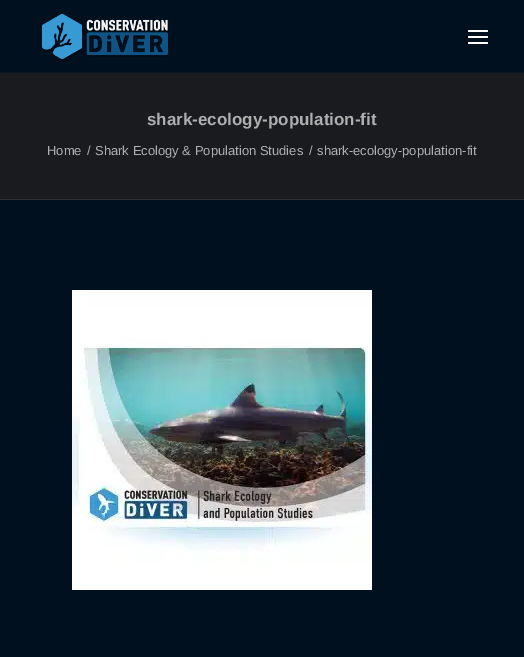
%!PS
<< /PageSize [524 657] >> setpagedevice
/f/fill load def
/C { dup -16 bitshift 255 div exch dup -8 bitshift 255 and 255 div exch 255 and 255 div setrgbcolor } def
/F { [ exch dup neg 0 0 3 -1 roll 0 0 ] selectfont } def
/T { moveto show } def
/R { rectfill } def
/Q { 5 dict begin { /r /h /w /y /x } { exch def } forall
  x r add y moveto x w add y 2 copy h add r arct x w add y h add x 1 index r arct
  x y h add x y r arct x y 2 copy exch w add exch r arct closepath end } def
/I { 5 dict begin { /h /w /y /x /name } { exch def } forall
  gsave x y translate w h scale
  w h 8 [w 0 0 h 0 0] name (r) file false 3 colorimage grestore end } def
0 657 translate 1 -1 scale
4 setmiterlimit
16#191B1E C
0 0 524 657 R
16#00101F C
0 0 524 72 R
(1.rgb) 42 13 127 48 I
16#FFFFFF C
468 36 20 2 1 Q f
468 30 20 2 1 Q f
468 42 20 2 1 Q f
16#0A1723 C
0 72 524 1 R
16#303133 C
0 199 524 1 R
/LiberationSans-Bold 17 F
16#AFAFB0 C
(shark-ecology-population-fit) 147 125 T
/LiberationSans-Regular 13 F
(Home) 47 155 T
(/) 87 155 T
(Shark Ecology & Population Studies) 95 155 T
(/) 309 155 T
(shark-ecology-population-fit) 317 155 T
16#00101F C
0 200 524 457 R
(2.rgb) 72 290 300 300 I
showpage
